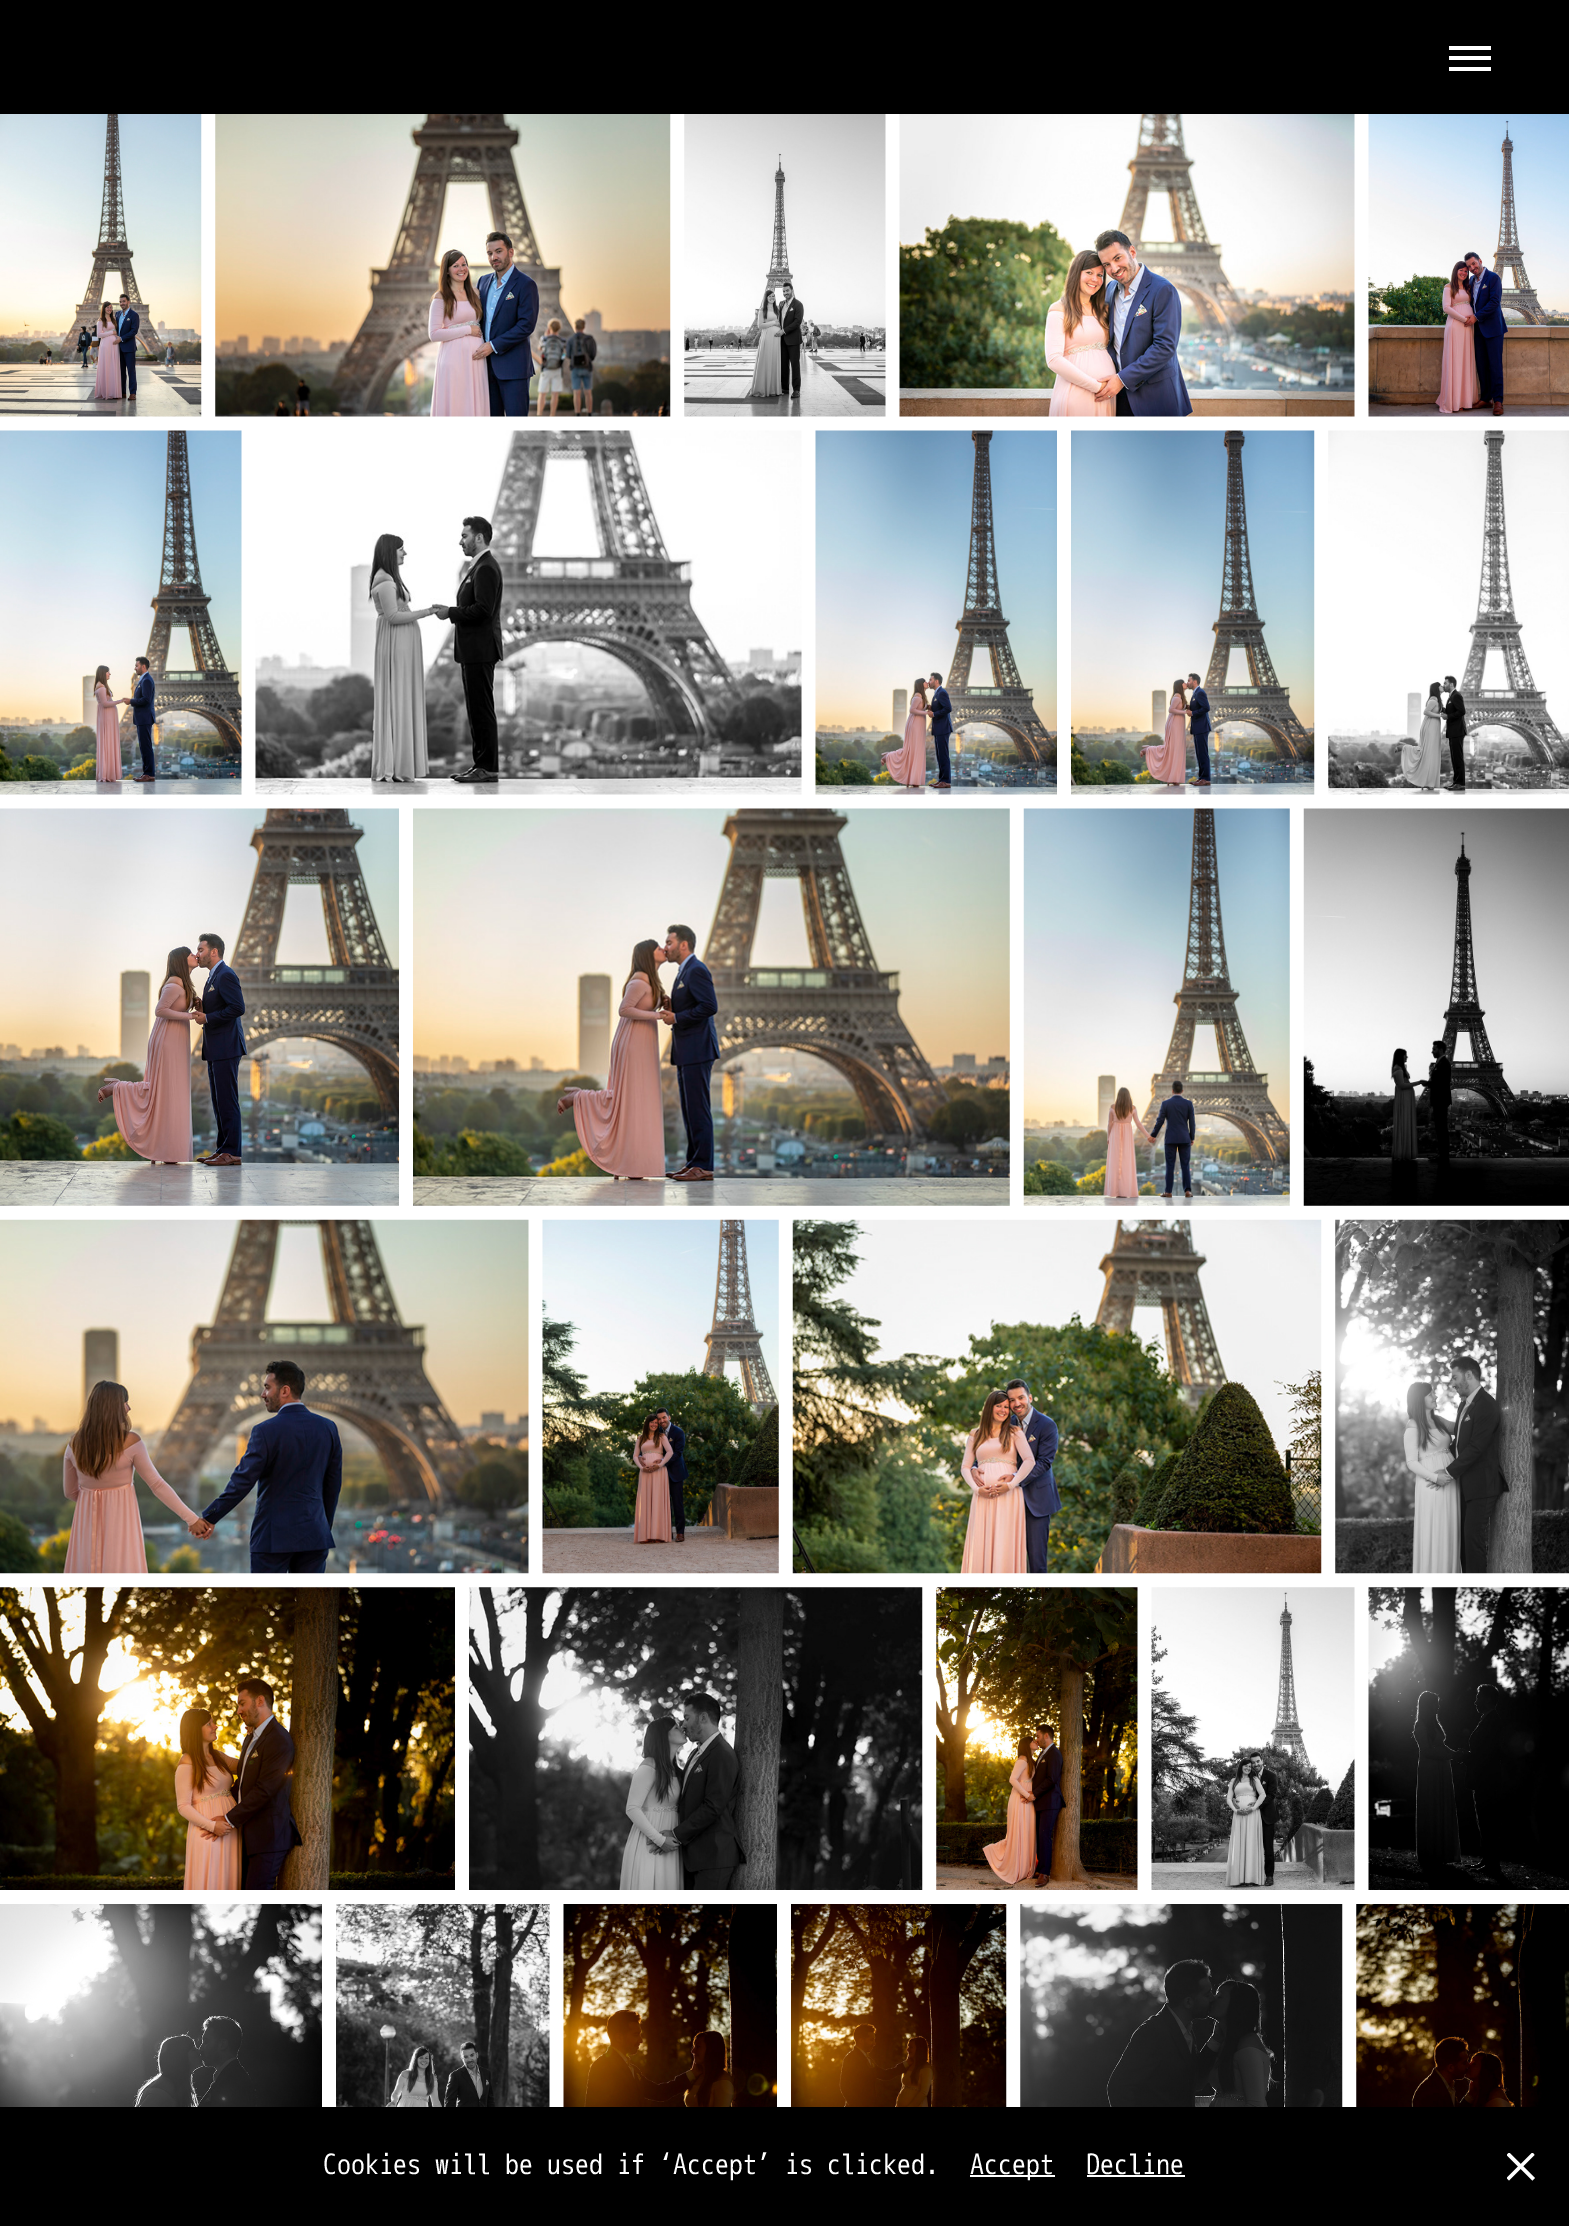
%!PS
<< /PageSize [1569 2226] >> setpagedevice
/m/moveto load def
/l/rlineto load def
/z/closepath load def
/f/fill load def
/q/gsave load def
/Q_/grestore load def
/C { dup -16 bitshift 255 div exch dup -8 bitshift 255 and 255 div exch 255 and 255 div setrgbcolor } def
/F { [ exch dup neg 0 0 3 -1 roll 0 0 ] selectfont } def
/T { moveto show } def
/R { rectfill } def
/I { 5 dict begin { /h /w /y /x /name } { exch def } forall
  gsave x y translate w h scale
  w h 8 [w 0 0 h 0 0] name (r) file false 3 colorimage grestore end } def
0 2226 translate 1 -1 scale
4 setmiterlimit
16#FFFFFF C
0 0 1569 2226 R
16#000000 C
0 0 1569 114 R
16#FFFFFF C
1449 46 42 4 R
1449 56 42 4 R
1449 67 42 4 R
(1.rgb) 0 114 202 303 I
(2.rgb) 215 114 456 303 I
(3.rgb) 684 114 202 303 I
(4.rgb) 899 114 456 303 I
(5.rgb) 1368 114 201 303 I
(6.rgb) 0 430 242 365 I
(7.rgb) 255 430 547 365 I
(8.rgb) 815 430 242 365 I
(9.rgb) 1071 430 244 365 I
(10.rgb) 1328 430 241 365 I
(11.rgb) 0 808 399 398 I
(12.rgb) 413 808 597 398 I
(13.rgb) 1023 808 267 398 I
(14.rgb) 1303 808 266 398 I
(15.rgb) 0 1219 529 355 I
(16.rgb) 542 1219 237 355 I
(17.rgb) 792 1219 530 355 I
(18.rgb) 1335 1219 234 355 I
(19.rgb) 0 1587 455 303 I
(20.rgb) 469 1587 454 303 I
(21.rgb) 936 1587 202 303 I
(22.rgb) 1151 1587 204 303 I
(23.rgb) 1368 1587 201 303 I
(24.rgb) 0 1904 322 203 I
(25.rgb) 336 1904 214 203 I
(26.rgb) 563 1904 214 203 I
(27.rgb) 791 1904 216 203 I
(28.rgb) 1020 1904 323 203 I
(29.rgb) 1356 1904 213 203 I
16#000000 C
0 2107 1569 119 R
/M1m-Regular 28 F
16#FFFFFF C
(Cookies will be used if ‘Accept’ is clicked.) 323 2174 T
970 2175 85 2 R
(Accept) 970 2174 T
(Decline) 1086 2174 T
1087 2175 98 2 R
q
1507 2153 28 28 rectclip
1506.5 2155 m 2.5 -2.5 l 26 25.5 l -2.5 2.5 l z f
1509 2180.5 m -2.5 -2.5 l 26 -25.5 l 2 2.5 l z f
Q_
showpage
